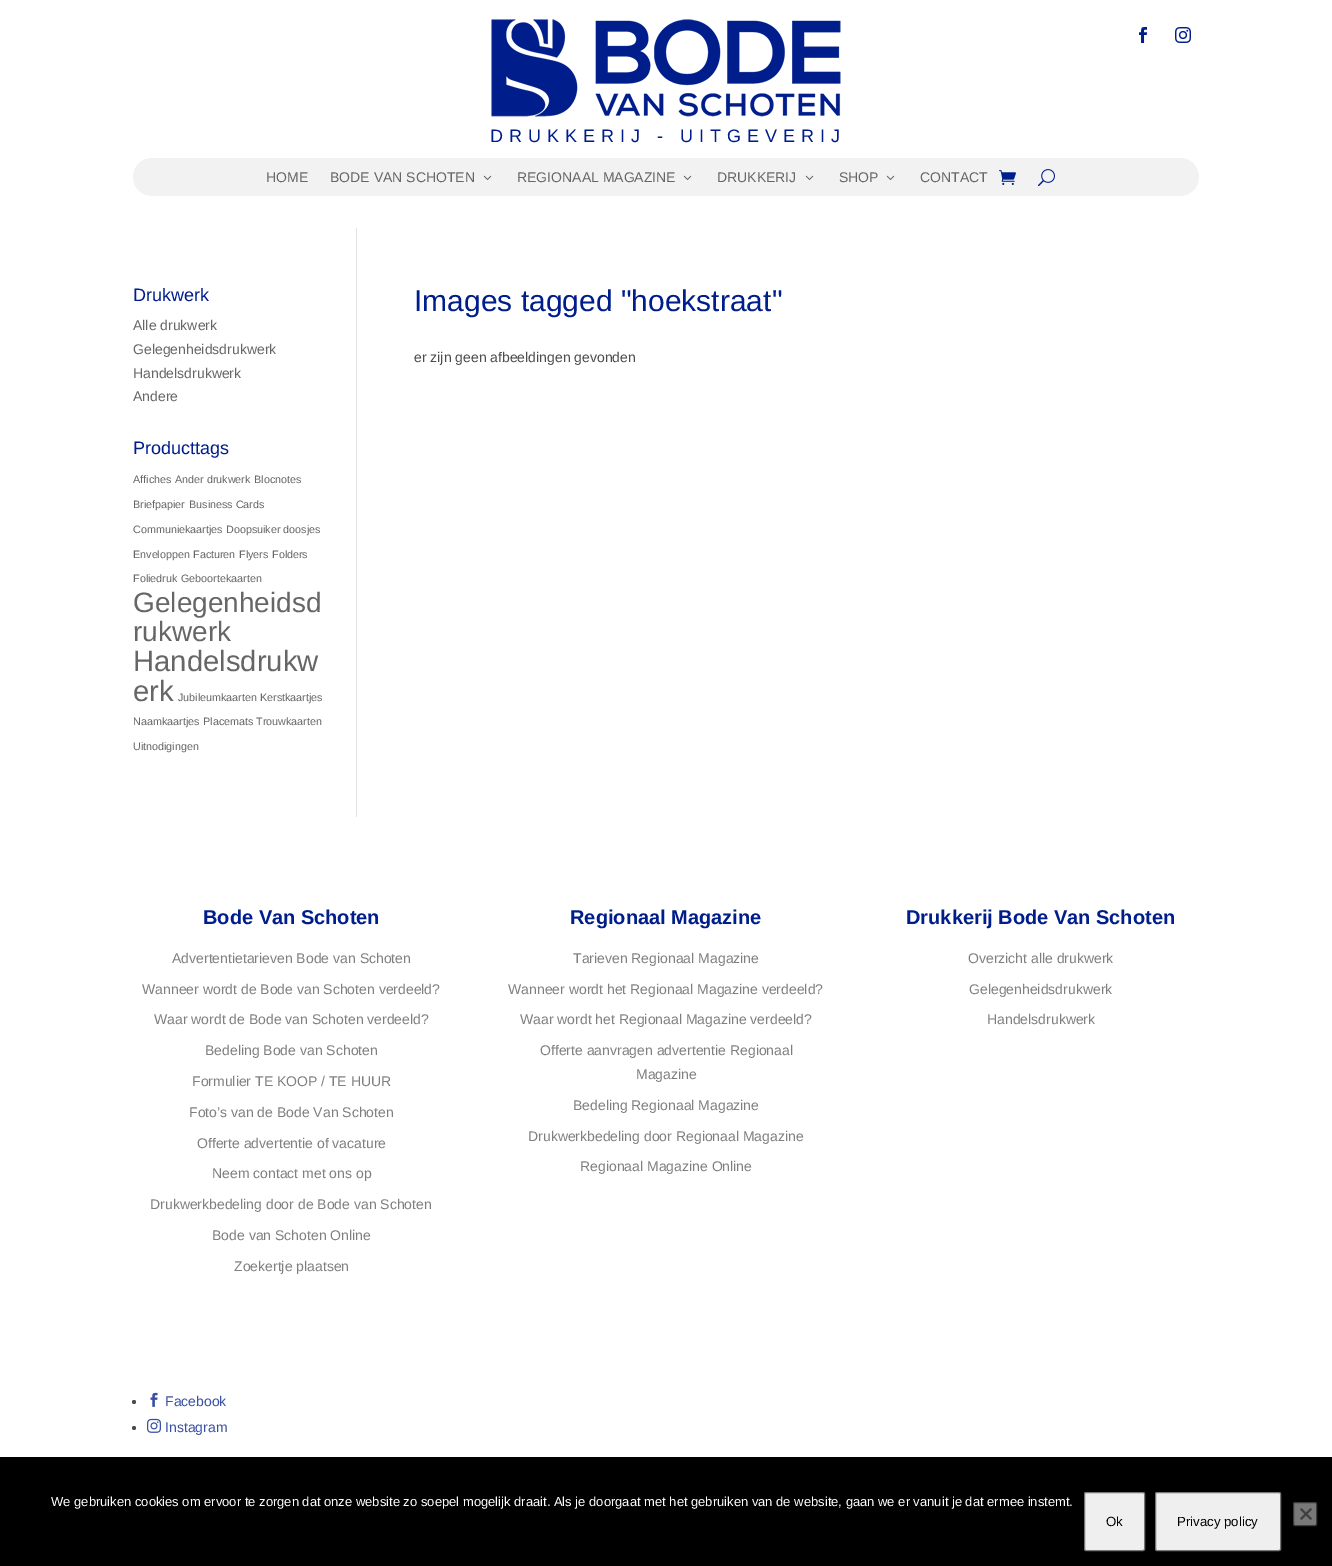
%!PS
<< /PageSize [1332 1566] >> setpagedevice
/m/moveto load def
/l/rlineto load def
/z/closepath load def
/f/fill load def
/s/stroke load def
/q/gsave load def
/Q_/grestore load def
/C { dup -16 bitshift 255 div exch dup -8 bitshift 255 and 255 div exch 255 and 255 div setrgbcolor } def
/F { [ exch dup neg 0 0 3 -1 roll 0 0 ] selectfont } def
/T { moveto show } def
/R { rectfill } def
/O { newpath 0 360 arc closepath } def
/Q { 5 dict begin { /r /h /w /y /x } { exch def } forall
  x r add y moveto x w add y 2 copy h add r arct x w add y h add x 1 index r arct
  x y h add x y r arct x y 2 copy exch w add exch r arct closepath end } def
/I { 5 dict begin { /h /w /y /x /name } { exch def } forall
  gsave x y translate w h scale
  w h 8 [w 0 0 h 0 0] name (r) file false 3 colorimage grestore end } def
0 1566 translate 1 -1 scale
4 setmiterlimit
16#FFFFFF C
0 0 1332 1566 R
(1.rgb) 1139 27 8 16 I
(2.rgb) 1175 27 16 16 I
(3.rgb) 491 19 350 98 I
/LiberationSans-Regular 18 F
16#001E8B C
490 142 m 6 0 (DRUKKERIJ - UITGEVERIJ) ashow
16#F2F2F2 C
133 158 1066 38 19 Q f
/LiberationSans-Regular 14 F
16#666666 C
(HOME) 266 182 T
(BODE VAN SCHOTEN) 330 182 T
(4.rgb) 483 175 9 5 I
(REGIONAAL MAGAZINE) 517 182 T
(4.rgb) 683 175 9 5 I
(DRUKKERIJ) 717 182 T
(4.rgb) 805 175 9 5 I
(SHOP) 839 182 T
(4.rgb) 886 175 9 5 I
(CONTACT) 920 182 T
(5.rgb) 999 170 17 15 I
(6.rgb) 1038 169 17 18 I
16#E2E2E2 C
356 228 1 589 R
/LiberationSans-Regular 18 F
16#001E8B C
(Drukwerk) 133 301 T
/LiberationSans-Regular 14 F
16#666666 C
(Alle drukwerk) 133 330 T
(Gelegenheidsdrukwerk) 133 354 T
(Handelsdrukwerk) 133 378 T
(Andere) 133 401 T
/LiberationSans-Regular 18 F
16#001E8B C
(Producttags) 133 454 T
/LiberationSans-Regular 10.75 F
16#666666 C
(Affiches) 133 483 T
(Ander drukwerk) 175 483 T
(Blocnotes) 254 483 T
(Briefpapier) 133 508 T
(Business Cards) 189 508 T
(Communiekaartjes) 133 533 T
(Doopsuiker doosjes) 226 533 T
(Enveloppen) 133 558 T
(Facturen) 193 558 T
(Flyers) 239 558 T
(Folders) 272 558 T
(Foliedruk) 133 582 T
(Geboortekaarten) 181 582 T
/LiberationSans-Regular 28 F
(Gelegenheidsd) 133 612 T
(rukwerk) 133 641 T
/LiberationSans-Regular 29.25 F
(Handelsdrukw) 133 671 T
(erk) 133 701 T
/LiberationSans-Regular 10.75 F
(Jubileumkaarten) 178 701 T
(Kerstkaartjes) 260 701 T
(Naamkaartjes) 133 725 T
(Placemats) 203 725 T
(Trouwkaarten) 256 725 T
(Uitnodigingen) 133 750 T
/LiberationSans-Regular 30 F
16#001E8B C
(Images tagged "hoekstraat") 414 311 T
/LiberationSans-Regular 14 F
16#4C4C4C C
(er zijn geen afbeeldingen gevonden) 414 362 T
/LiberationSans-Bold 20 F
16#001E8B C
(Bode Van Schoten) 203 924 T
/LiberationSans-Regular 14 F
16#7F7F7F C
(Advertentietarieven Bode van Schoten) 172 963 T
(Wanneer wordt de Bode van Schoten verdeeld?) 142 994 T
(Waar wordt de Bode van Schoten verdeeld?) 154 1024 T
(Bedeling Bode van Schoten) 205 1055 T
(Formulier TE KOOP / TE HUUR) 192 1086 T
(Foto’s van de Bode Van Schoten) 189 1117 T
(Offerte advertentie of vacature) 197 1148 T
(Neem contact met ons op) 212 1178 T
(Drukwerkbedeling door de Bode van Schoten) 150 1209 T
(Bode van Schoten Online) 212 1240 T
(Zoekertje plaatsen) 234 1271 T
/LiberationSans-Bold 20 F
16#001E8B C
(Regionaal Magazine) 570 924 T
/LiberationSans-Regular 14 F
16#7F7F7F C
(Tarieven Regionaal Magazine) 573 963 T
(Wanneer wordt het Regionaal Magazine verdeeld?) 508 994 T
(Waar wordt het Regionaal Magazine verdeeld?) 520 1024 T
(Offerte aanvragen advertentie Regionaal) 540 1055 T
(Magazine) 636 1079 T
(Bedeling Regionaal Magazine) 573 1110 T
(Drukwerkbedeling door Regionaal Magazine) 528 1141 T
(Regionaal Magazine Online) 580 1171 T
/LiberationSans-Bold 20 F
16#001E8B C
(Drukkerij Bode Van Schoten) 906 924 T
/LiberationSans-Regular 14 F
16#7F7F7F C
(Overzicht alle drukwerk) 968 963 T
(Gelegenheidsdrukwerk) 969 994 T
(Handelsdrukwerk) 987 1024 T
16#4C4C4C C
134 1402 2 O f
(7.rgb) 150 1392 8 15 I
16#3850A5 C
(Facebook) 165 1406 T
16#4C4C4C C
134 1428 2 O f
(8.rgb) 147 1418 14 15 I
16#3850A5 C
(Instagram) 165 1432 T
16#000000 C
0 1457 1332 109 R
/LiberationSans-Regular 13 F
16#FFFFFF C
(We gebruiken cookies om ervoor te zorgen dat onze website zo soepel mogelijk draait. Als je doorgaat met het gebruiken van de website, gaan we er vanuit je dat ermee instemt.) 51 1506 T
16#EFEFEF C
1084.5 1492.5 60 58 1.5 Q q f Q_
16#767676 C
s
/LiberationSans-Regular 13.25 F
16#000000 C
(Ok) 1106 1526 T
16#EFEFEF C
1155.5 1492.5 125 58 1.5 Q q f Q_
16#767676 C
s
16#000000 C
(Privacy policy) 1177 1526 T
16#787878 C
1293.5 1502.5 23 23 1.5 Q q f Q_
16#3B3B3B C
s
16#404040 C
1310.5 1508 m 1.5 1.5 l -10.5 10.5 l -1.5 -1.5 l z f
1300 1509.5 m 1.5 -1.5 l 10.5 10.5 l -1.5 1.5 l z f
showpage
